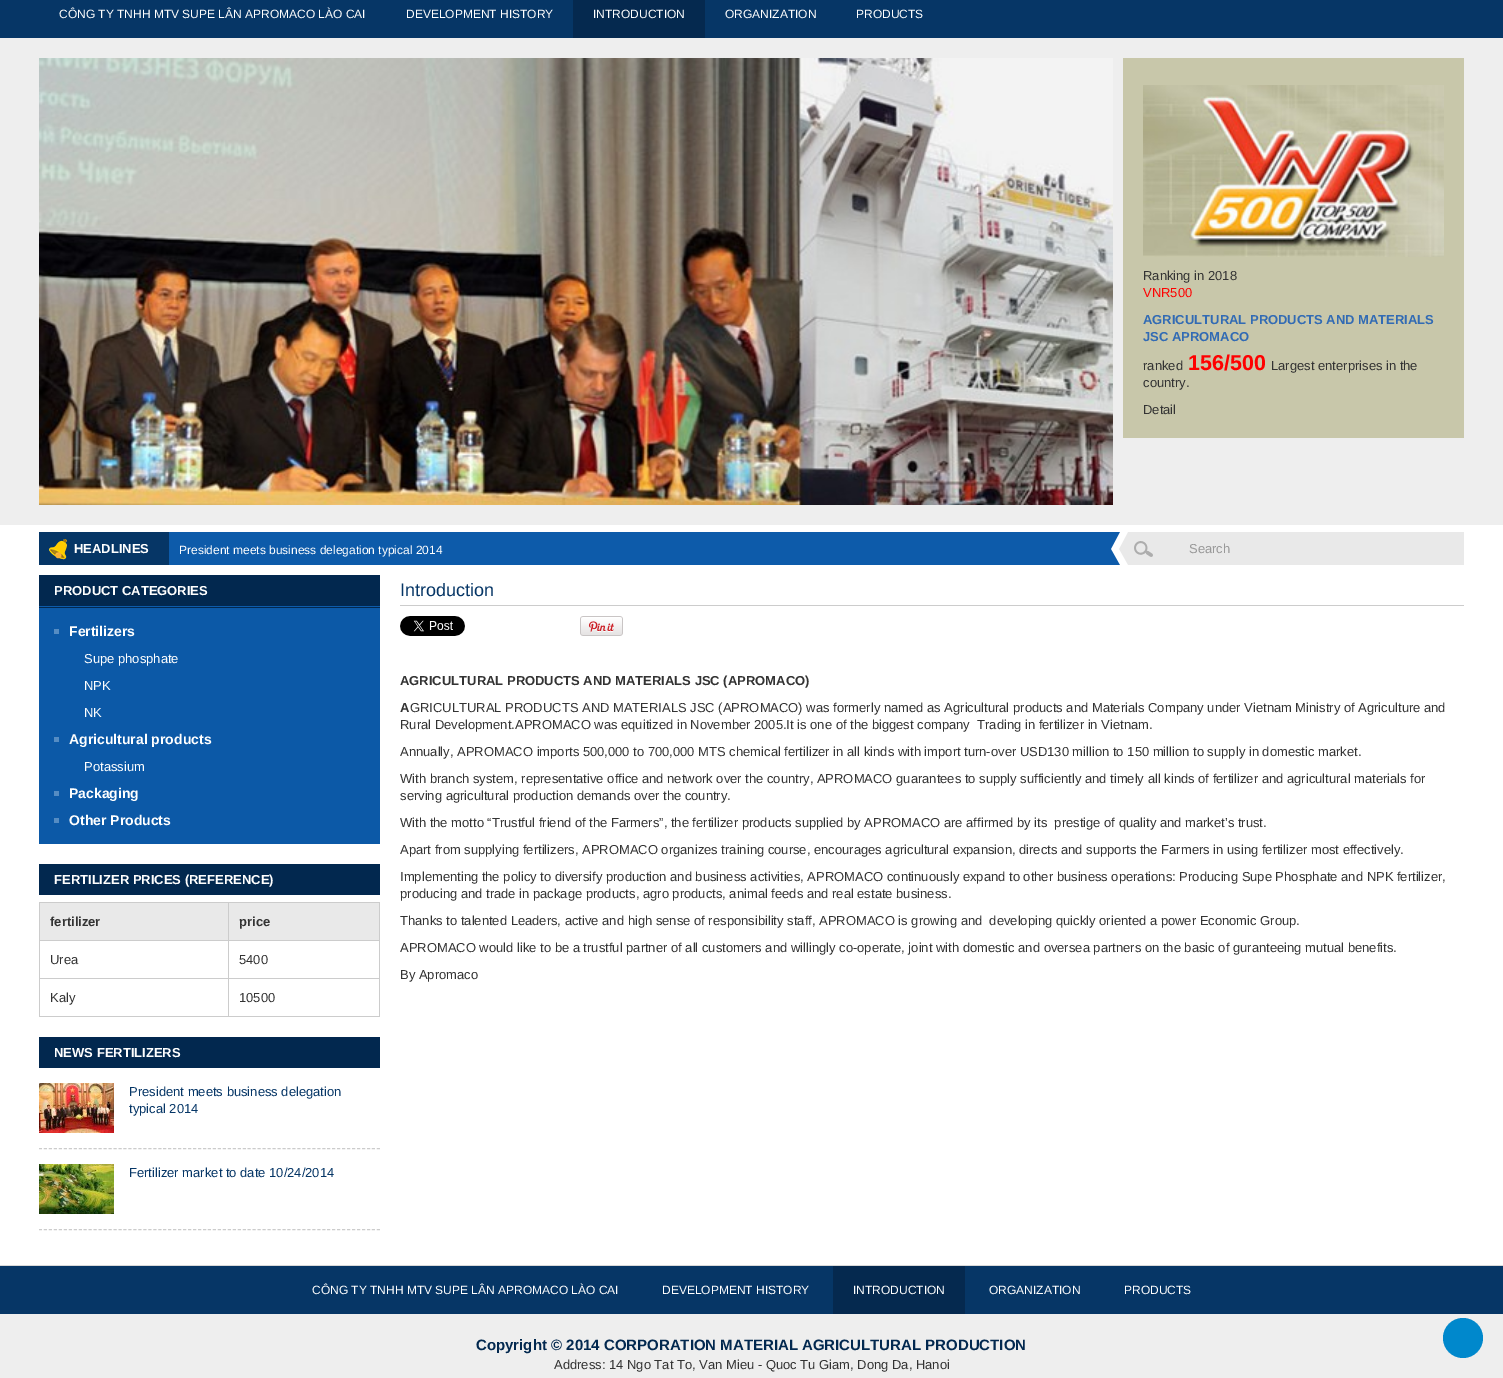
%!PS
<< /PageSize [1503 1378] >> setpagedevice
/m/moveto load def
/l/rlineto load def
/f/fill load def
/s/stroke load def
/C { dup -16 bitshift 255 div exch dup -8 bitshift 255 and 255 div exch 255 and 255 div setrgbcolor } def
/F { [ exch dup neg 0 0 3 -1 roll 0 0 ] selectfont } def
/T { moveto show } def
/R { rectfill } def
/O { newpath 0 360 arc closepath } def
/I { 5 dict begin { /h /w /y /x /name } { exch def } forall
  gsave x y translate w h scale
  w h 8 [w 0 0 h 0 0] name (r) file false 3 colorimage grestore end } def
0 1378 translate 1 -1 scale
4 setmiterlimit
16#FFFFFF C
0 0 1503 1378 R
16#EEEEEE C
0 38 1503 487 R
16#063666 C
0 0 1503 38 R
/LiberationSans-Regular 12 F
16#FFFFFF C
(CÔNG TY TNHH MTV SUPE LÂN APROMACO LÀO CAI) 59 18 T
(DEVELOPMENT HISTORY) 406 18 T
16#05294F C
573 0 132 38 R
16#FFFFFF C
(INTRODUCTION) 593 18 T
(ORGANIZATION) 725 18 T
(PRODUCTS) 856 18 T
(1.rgb) 39 58 1074 447 I
16#C8C7AA C
1123 58 341 380 R
(2.rgb) 1143 85 301 172 I
/LiberationSans-Regular 13 F
16#333333 C
(Ranking in 2018) 1143 280 T
16#FF0000 C
(VNR500) 1143 297 T
/LiberationSans-Bold 13 F
16#326BB4 C
(AGRICULTURAL PRODUCTS AND MATERIALS) 1143 324 T
(JSC APROMACO) 1143 341 T
/LiberationSans-Regular 13 F
16#333333 C
(ranked) 1143 370 T
/LiberationSans-Bold 21.5 F
16#FF0000 C
(156/500) 1188 370 T
/LiberationSans-Regular 13 F
16#333333 C
(Largest enterprises in the) 1271 370 T
(country.) 1143 387 T
(Detail) 1143 414 T
16#0D5BAA C
169 532 942 33 R
16#063666 C
39 532 130 33 R
(3.rgb) 49 539 18 21 I
/LiberationSans-Bold 13 F
16#FFFFFF C
(HEADLINES) 74 553 T
/LiberationSans-Regular 12 F
(President meets business delegation typical 2014) 179 554 T
(4.rgb) 1111 532 353 33 I
/LiberationSans-Regular 13 F
16#999999 C
(Search) 1189 553 T
16#02284F C
39 575 341 31 R
16#0D5BAA C
39 606 341 1 R
/LiberationSans-Bold 13 F
16#FFFFFF C
(PRODUCT CATEGORIES) 54 595 T
16#0C59A7 C
39 608 341 236 R
16#02284F C
39 607 341 1 R
16#558CC3 C
54 629 5 5 R
/LiberationSans-Bold 14 F
16#FFFFFF C
(Fertilizers) 69 636 T
/LiberationSans-Regular 13 F
(Supe phosphate) 84 663 T
(NPK) 84 690 T
(NK) 84 717 T
16#558CC3 C
54 737 5 5 R
/LiberationSans-Bold 14 F
16#FFFFFF C
(Agricultural products) 69 744 T
/LiberationSans-Regular 13 F
(Potassium) 84 771 T
16#558CC3 C
54 791 5 5 R
/LiberationSans-Bold 14 F
16#FFFFFF C
(Packaging) 69 798 T
16#558CC3 C
54 818 5 5 R
16#FFFFFF C
(Other Products) 69 825 T
16#02284F C
39 864 341 31 R
/LiberationSans-Bold 13 F
16#FFFFFF C
(FERTILIZER PRICES \(REFERENCE\)) 54 884 T
16#CCCCCC C
39 902 341 1 R
379 902 1 115 R
39 1016 341 1 R
39 902 1 115 R
16#E9E9E9 C
40 903 339 37 R
16#333333 C
(fertilizer) 50 926 T
(price) 239 926 T
16#CCCCCC C
39 940 341 1 R
/LiberationSans-Regular 13 F
16#333333 C
(Urea) 50 964 T
(5400) 239 964 T
16#CCCCCC C
39 978 341 1 R
16#333333 C
(Kaly) 50 1002 T
16#CCCCCC C
228 902 1 115 R
16#333333 C
(10500) 239 1002 T
16#02284F C
39 1037 341 31 R
/LiberationSans-Bold 13 F
16#FFFFFF C
(NEWS FERTILIZERS) 54 1057 T
16#CCCCCC C
[3 1.97] 0 setdash
39 1148.5 m 341 0 l s
(5.rgb) 39 1083 75 50 I
/LiberationSans-Regular 13 F
16#063666 C
(President meets business delegation) 129 1096 T
(typical 2014) 129 1113 T
16#CCCCCC C
39 1229.5 m 341 0 l s
(6.rgb) 39 1164 75 50 I
16#063666 C
(Fertilizer market to date 10/24/2014) 129 1177 T
16#CCCCCC C
400 605 1064 1 R
/LiberationSans-Regular 18 F
16#063666 C
(Introduction) 400 596 T
(7.rgb) 400 616 65 20 I
(8.rgb) 580 616 43 20 I
/LiberationSans-Bold 13 F
16#333333 C
(AGRICULTURAL PRODUCTS AND MATERIALS JSC \(APROMACO\)) 400 685 T
(A) 400 712 T
/LiberationSans-Regular 13 F
(GRICULTURAL PRODUCTS AND MATERIALS JSC \(APROMACO\) was formerly named as Agricultural products and Materials Company under Vietnam Ministry of Agriculture and) 410 712 T
(Rural Development.APROMACO was equitized in November 2005.It is one of the biggest company  Trading in fertilizer in Vietnam.) 400 729 T
(Annually, APROMACO imports 500,000 to 700,000 MTS chemical fertilizer in all kinds with import turn-over USD130 million to 150 million to supply in domestic market.) 400 756 T
(With branch system, representative office and network over the country, APROMACO guarantees to supply sufficiently and timely all kinds of fertilizer and agricultural materials for) 400 783 T
(serving agricultural production demands over the country.) 400 800 T
(With the motto “Trustful friend of the Farmers”, the fertilizer products supplied by APROMACO are affirmed by its  prestige of quality and market’s trust.) 400 827 T
(Apart from supplying fertilizers, APROMACO organizes training course, encourages agricultural expansion, directs and supports the Farmers in using fertilizer most effectively.) 400 854 T
(Implementing the policy to diversify production and business activities, APROMACO continuously expand to other business operations: Producing Supe Phosphate and NPK fertilizer,) 400 881 T
(producing and trade in package products, agro products, animal feeds and real estate business.) 400 898 T
(Thanks to talented Leaders, active and high sense of responsibility staff, APROMACO is growing and  developing quickly oriented a power Economic Group.) 400 925 T
(APROMACO would like to be a trustful partner of all customers and willingly co-operate, joint with domestic and oversea partners on the basic of guranteeing mutual benefits.) 400 952 T
(By Apromaco) 400 979 T
16#EEEEEE C
0 1314 1503 64 R
16#D9D9D9 C
0 1265 1503 1 R
16#063666 C
0 1266 1503 48 R
/LiberationSans-Regular 12 F
16#FFFFFF C
(CÔNG TY TNHH MTV SUPE LÂN APROMACO LÀO CAI) 312 1294 T
(DEVELOPMENT HISTORY) 662 1294 T
16#05294F C
833 1266 132 48 R
16#FFFFFF C
(INTRODUCTION) 853 1294 T
(ORGANIZATION) 989 1294 T
(PRODUCTS) 1124 1294 T
/LiberationSans-Bold 15 F
16#02284F C
(Copyright © 2014 CORPORATION MATERIAL AGRICULTURAL PRODUCTION) 476 1350 T
/LiberationSans-Regular 13 F
16#333333 C
(Address: 14 Ngo Tat To, Van Mieu - Quoc Tu Giam, Dong Da, Hanoi) 554 1369 T
16#0088CC C
1463 1338 20 O f
showpage
